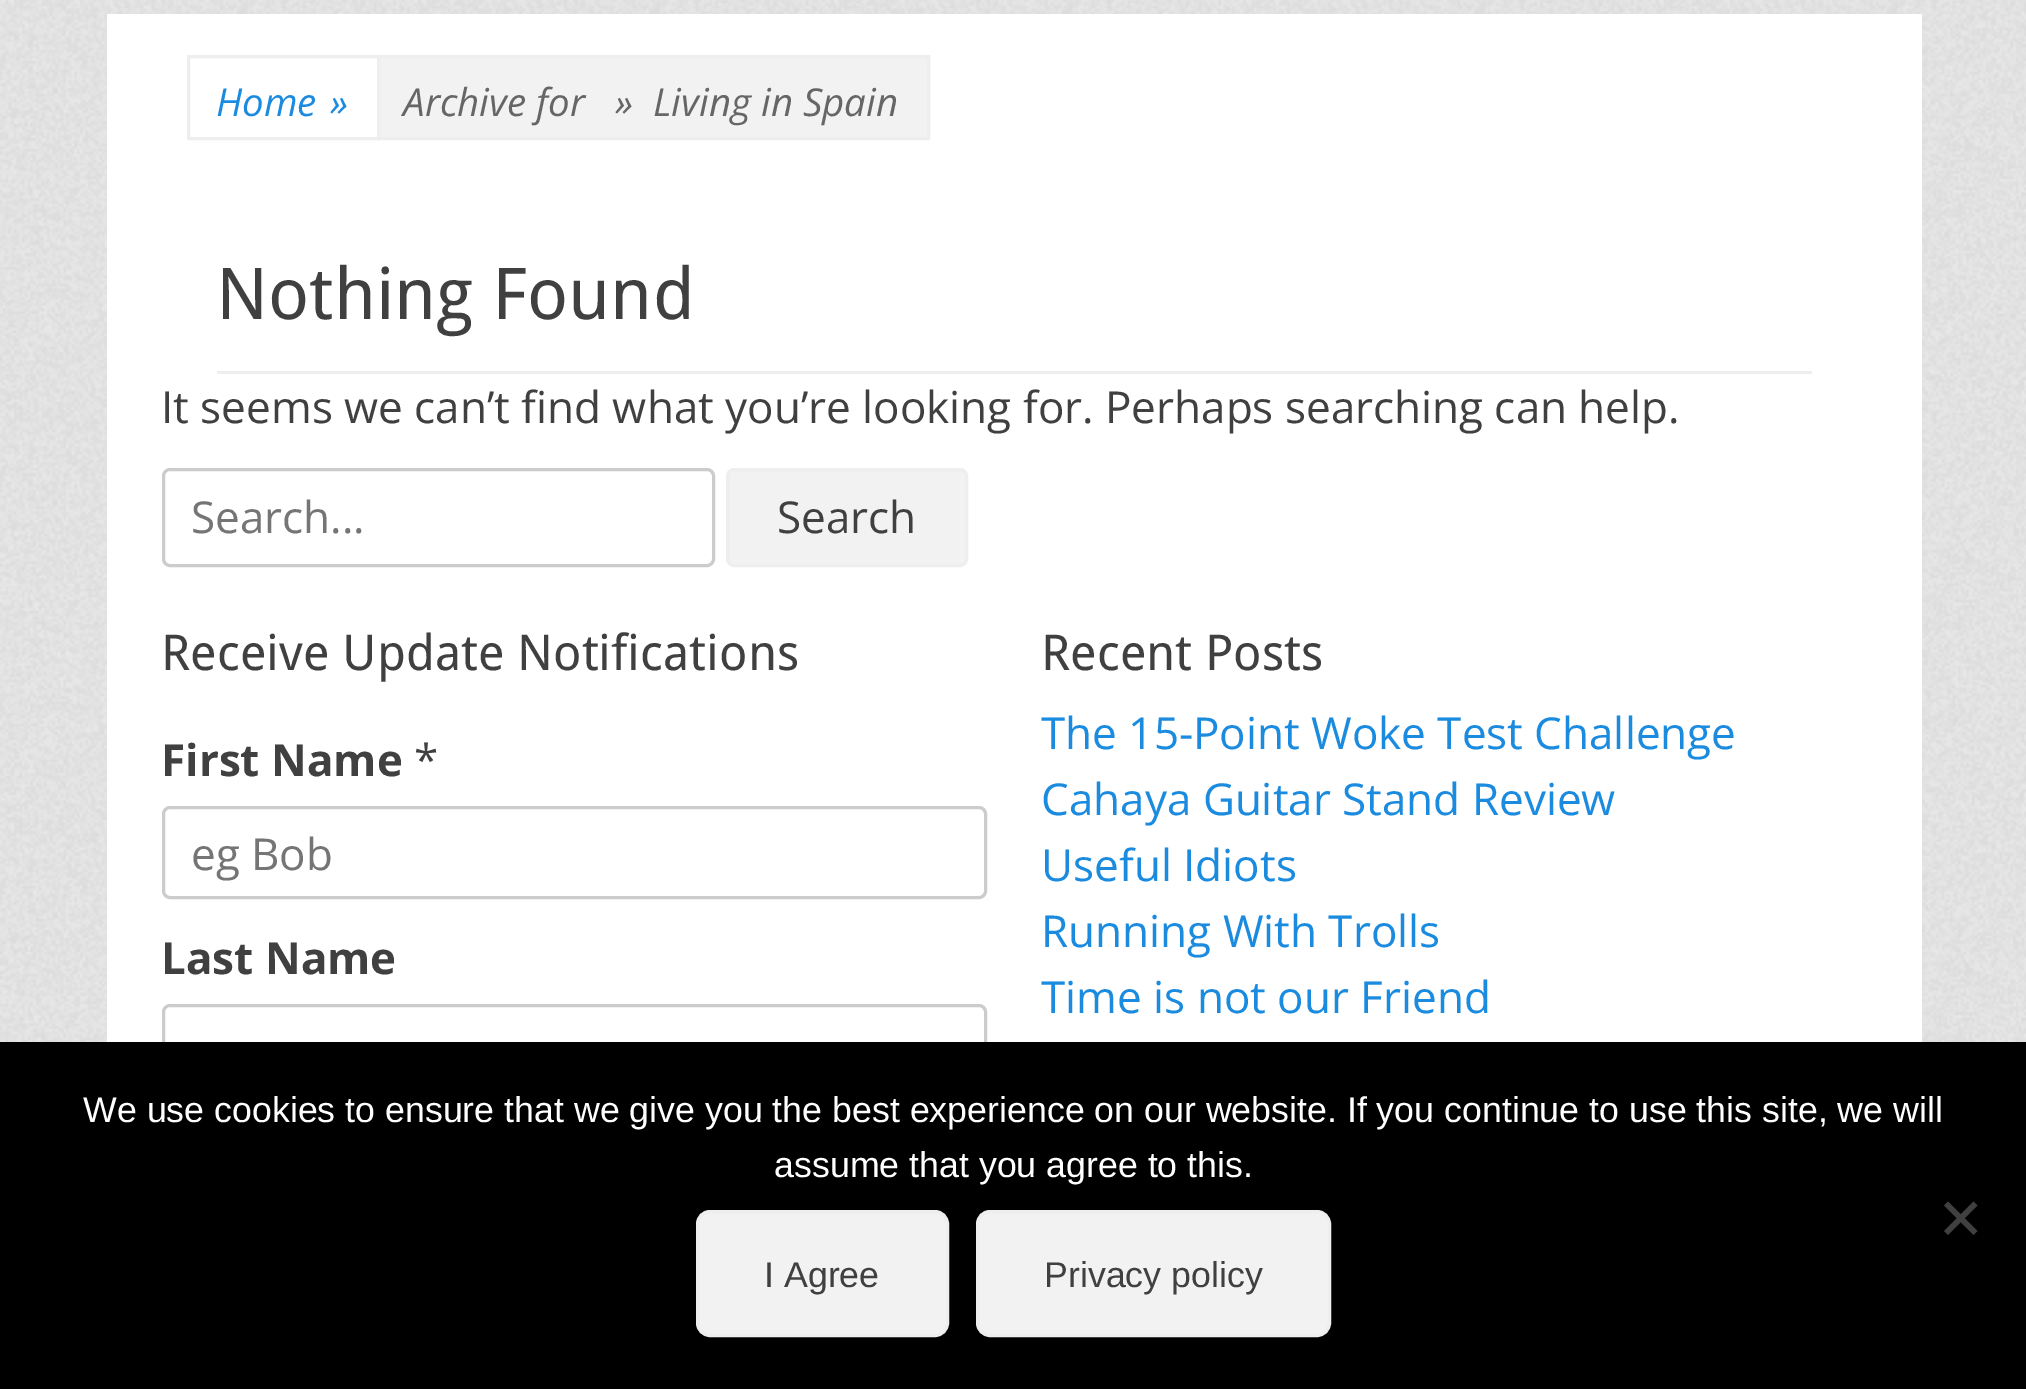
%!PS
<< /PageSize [2026 1389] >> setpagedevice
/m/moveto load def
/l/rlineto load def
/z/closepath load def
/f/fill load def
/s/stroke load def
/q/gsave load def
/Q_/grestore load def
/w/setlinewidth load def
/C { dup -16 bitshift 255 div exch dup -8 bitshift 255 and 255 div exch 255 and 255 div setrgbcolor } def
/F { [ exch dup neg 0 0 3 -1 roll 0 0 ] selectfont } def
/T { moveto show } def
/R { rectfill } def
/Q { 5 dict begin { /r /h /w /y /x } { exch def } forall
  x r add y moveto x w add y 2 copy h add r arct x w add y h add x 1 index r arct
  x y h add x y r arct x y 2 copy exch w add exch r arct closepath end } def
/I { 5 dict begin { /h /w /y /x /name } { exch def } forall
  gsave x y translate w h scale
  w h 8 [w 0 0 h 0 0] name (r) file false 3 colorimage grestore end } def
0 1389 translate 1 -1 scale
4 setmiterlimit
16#FFFFFF C
0 0 2026 1389 R
(1.rgb) 0 0 2026 1042 I
107 14 1815 1028 R
16#EEEEEE C
3 w
188.5 56.5 190 82 rectstroke
/OpenSans-Italic 38.5 F
16#1B8BE0 C
(Home) 216 116 T
(») 330 116 T
16#F2F2F2 C
378.5 56.5 m 550 0 l 0 82 l -550 0 l z q f Q_
16#EEEEEE C
s
16#666666 C
(Archive for   ») 403 116 T
(Living in Spain) 653 116 T
16#EEEEEE C
217 371 1595 3 R
/DroidSans-Regular 71.5 F
16#404040 C
(Nothing Found) 216 319 T
/OpenSans-Regular 44 F
(It seems we can’t find what you’re looking for. Perhaps searching can help.) 161 423 T
16#CCCCCC C
163.5 469.5 550 96 6.5 Q s
16#757575 C
(Search...) 191 533 T
16#F2F2F2 C
727.5 469.5 239 96 6.5 Q q f Q_
16#EEEEEE C
s
16#404040 C
(Search) 777 533 T
/DroidSans-Regular 49.5 F
(Receive Update Notifications) 161 670 T
/OpenSans-Bold 44 F
(First Name) 161 776 T
/OpenSans-Regular 44 F
(*) 414 776 T
16#CCCCCC C
163.5 807.5 822 90 6.5 Q s
16#757575 C
(eg Bob) 191 870 T
/OpenSans-Bold 44 F
16#404040 C
(Last Name) 161 974 T
16#CCCCCC C
163.5 1005.5 822 90 6.5 Q s
/DroidSans-Regular 49.5 F
16#404040 C
(Recent Posts) 1041 670 T
/OpenSans-Regular 44 F
16#1B8BE0 C
(The 15-Point Woke Test Challenge) 1041 749 T
(Cahaya Guitar Stand Review) 1041 815 T
(Useful Idiots) 1041 881 T
(Running With Trolls) 1041 947 T
(Time is not our Friend) 1041 1013 T
16#000000 C
0 1042 2026 347 R
/LiberationSans-Regular 35.75 F
16#FFFFFF C
(We use cookies to ensure that we give you the best experience on our website. If you continue to use this site, we will) 83 1122 T
(assume that you agree to this.) 774 1177 T
16#404040 C
1973.5 1201.5 m 4 4 l -29.5 29.5 l -4 -4 l z f
1944 1205.5 m 4 -4 l 29.5 29.5 l -4 4 l z f
16#F2F2F2 C
697.5 1211.5 250 124 12.5 Q q f Q_
16#EEEEEE C
s
16#404040 C
(I Agree) 764 1287 T
16#F2F2F2 C
977.5 1211.5 352 124 12.5 Q q f Q_
16#EEEEEE C
s
16#404040 C
(Privacy policy) 1044 1287 T
showpage
